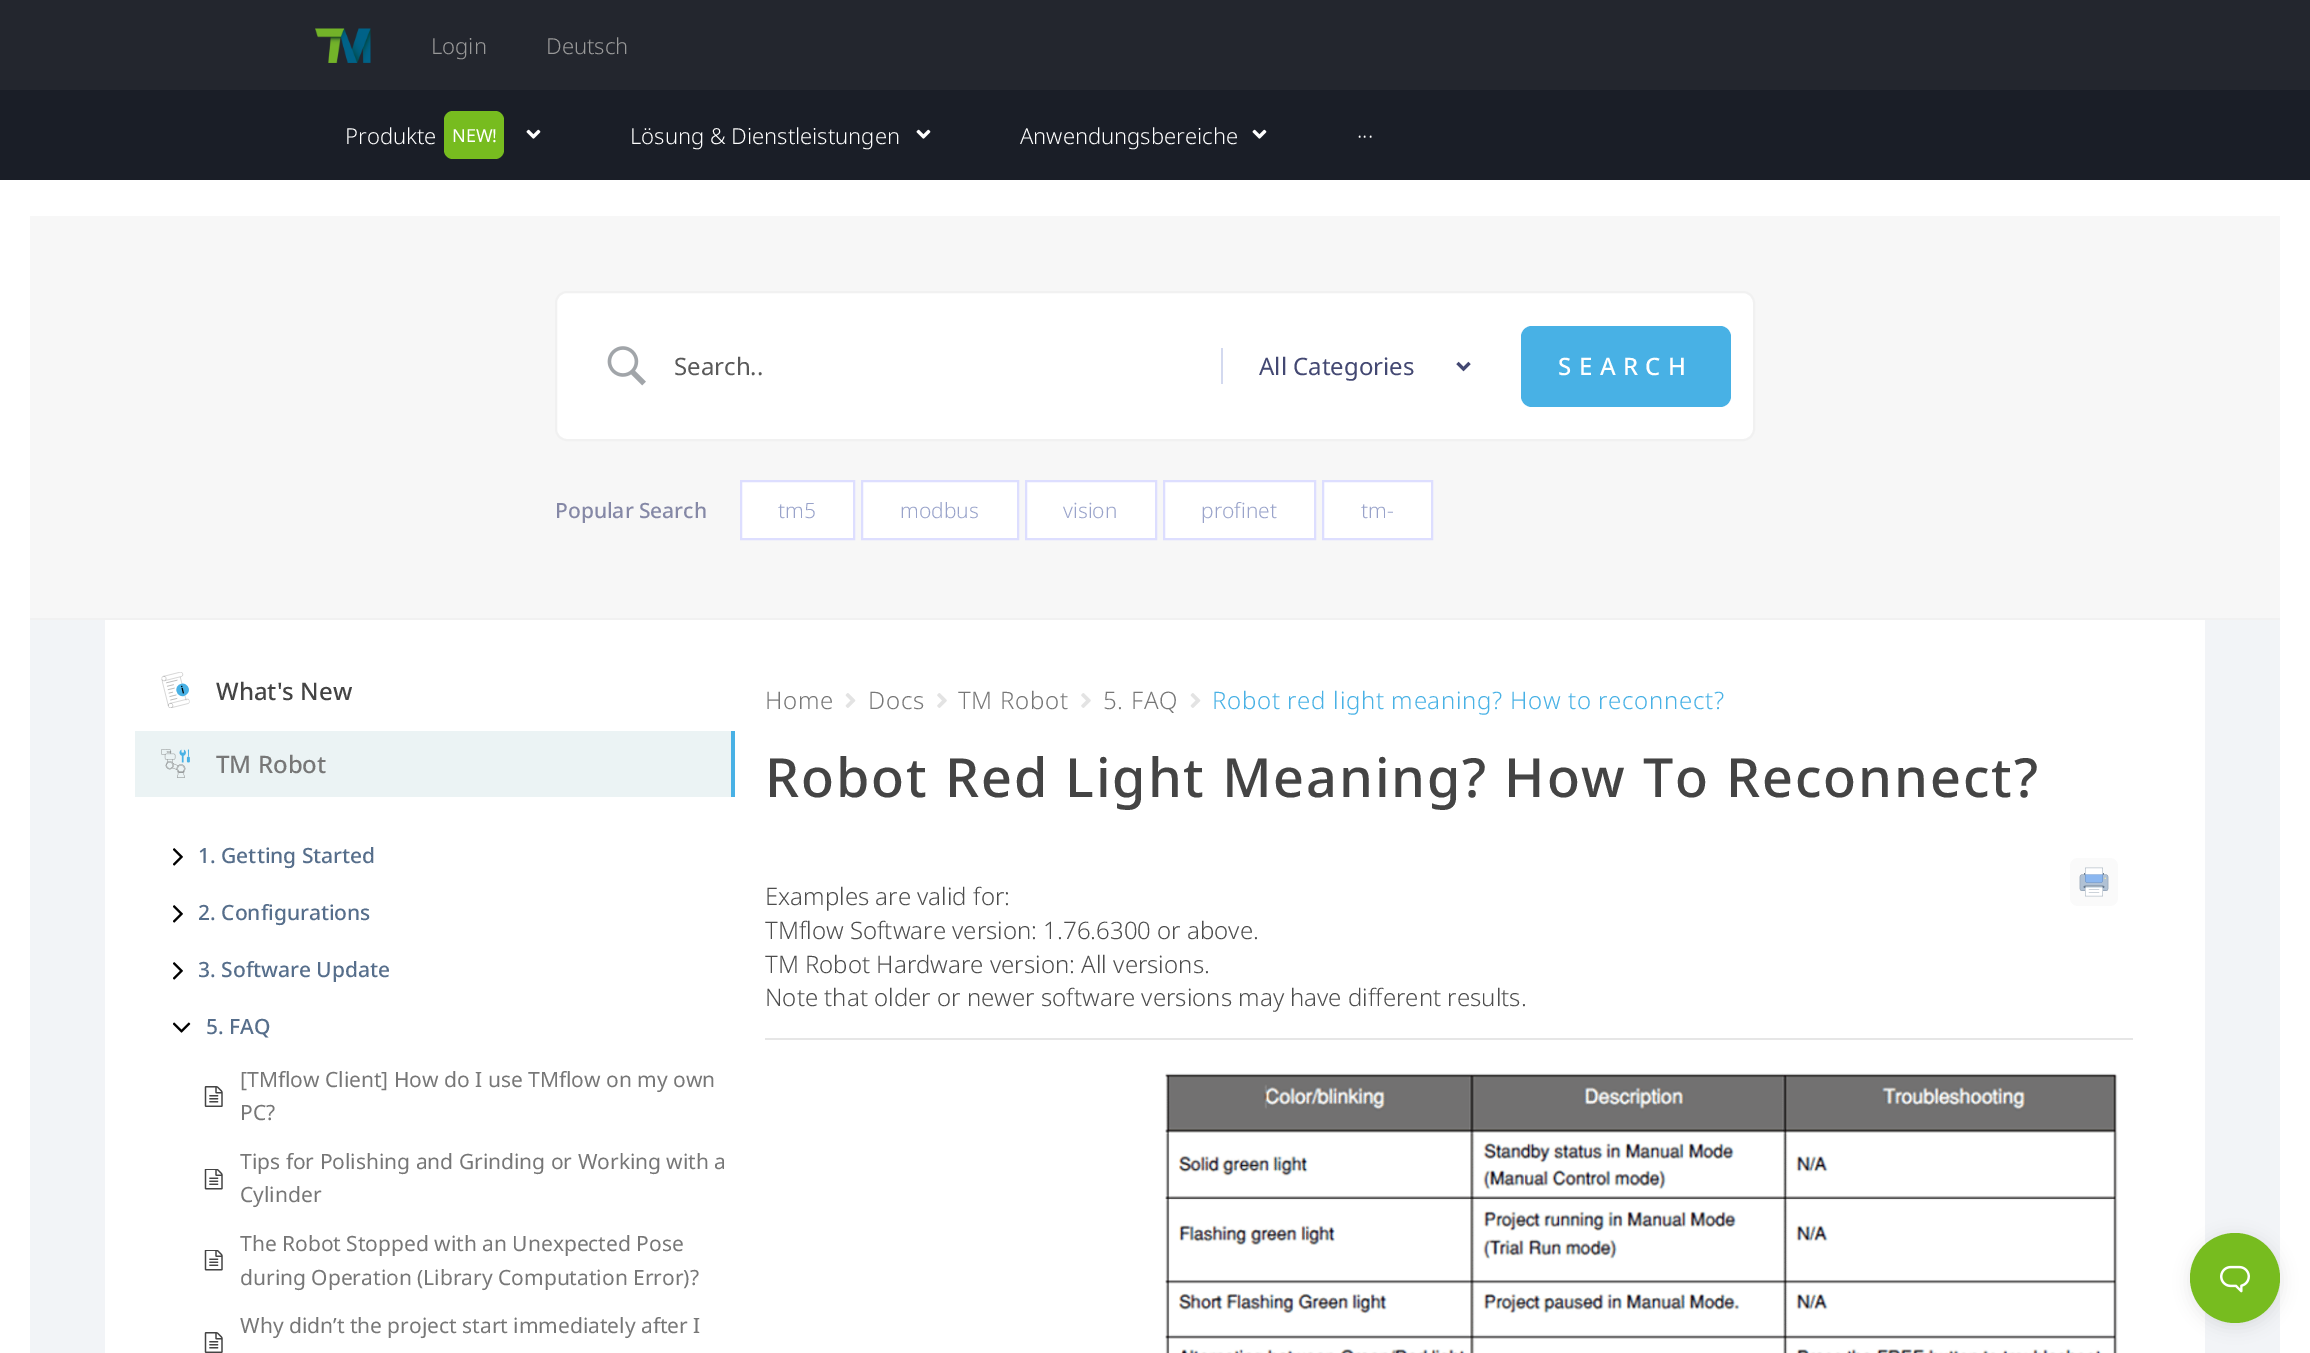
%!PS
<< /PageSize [2310 1353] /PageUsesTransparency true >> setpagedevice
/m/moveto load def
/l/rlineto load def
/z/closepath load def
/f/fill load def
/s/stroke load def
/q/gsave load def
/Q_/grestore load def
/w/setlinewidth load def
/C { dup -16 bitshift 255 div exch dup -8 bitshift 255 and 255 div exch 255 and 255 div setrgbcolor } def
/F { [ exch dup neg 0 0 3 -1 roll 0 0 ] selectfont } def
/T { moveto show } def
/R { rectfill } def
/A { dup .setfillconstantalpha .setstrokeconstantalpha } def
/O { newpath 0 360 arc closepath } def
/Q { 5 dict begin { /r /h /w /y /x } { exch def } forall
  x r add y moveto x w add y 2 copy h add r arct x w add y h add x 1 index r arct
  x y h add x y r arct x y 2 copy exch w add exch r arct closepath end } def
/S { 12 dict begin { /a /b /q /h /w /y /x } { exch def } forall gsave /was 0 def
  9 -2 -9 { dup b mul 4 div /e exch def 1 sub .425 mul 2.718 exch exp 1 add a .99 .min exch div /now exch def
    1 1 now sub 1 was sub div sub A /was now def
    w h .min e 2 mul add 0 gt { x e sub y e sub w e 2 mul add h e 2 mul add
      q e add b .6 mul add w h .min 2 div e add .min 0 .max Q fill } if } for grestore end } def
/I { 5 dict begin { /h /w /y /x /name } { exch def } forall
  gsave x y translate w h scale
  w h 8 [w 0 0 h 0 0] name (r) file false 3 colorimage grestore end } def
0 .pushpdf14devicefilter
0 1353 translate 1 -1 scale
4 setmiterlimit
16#FFFFFF C
0 0 2310 1353 R
16#23262E C
0 0 2310 90 R
(1.rgb) 315 28 56 35 I
/NotoSans-Light 22 F
16#999999 C
(Login) 431 54 T
(Deutsch) 546 54 T
16#1A1E27 C
0 90 2310 90 R
16#FFFFFF C
(Produkte) 345 144 T
16#77BC1F C
444 111 60 48 9 Q f
/NotoSans-Regular 18 F
16#FFFFFF C
(NEW!) 452 142 T
(2.rgb) 526 129 15 10 I
/NotoSans-Light 22 F
(Lösung & Dienstleistungen) 630 144 T
(2.rgb) 916 129 15 10 I
(Anwendungsbereiche) 1020 144 T
(2.rgb) 1252 129 15 10 I
(···) 1357 144 T
16#F2F4F7 C
30 620 2250 733 R
16#F7F7F7 C
30 216 2250 402 R
16#F1F1F1 C
30 618 2250 2 R
16#FFFFFF C
556 292 1198 148 11 Q q f Q_
16#F1F1F1 C
2 w
s
(3.rgb) 607 346 39 40 I
/NotoSans-Regular 24 F
16#595959 C
(Search..) 674 375 T
16#D3D9EF C
1221 348 2 36 R
16#434872 C
3 w
1457.5 363 m 6 6 l 6 -6 l s
(All Categories) 1259 375 T
16#48B1E5 C
1521 326 210 81 11 Q f
/NotoSans-Medium 24 F
16#FFFFFF C
1558 375 m 7.5 0 (SEARCH) ashow
/NotoSans-Medium 21 F
16#8588A6 C
(Popular Search) 555 518 T
16#FFFFFF C
741 481 m 113 0 l 0 58 l -113 0 l z q f Q_
16#DDDEFF C
2 w
s
/NotoSans-Light 21 F
16#99A3CA C
(tm5) 778 518 T
16#FFFFFF C
862 481 m 156 0 l 0 58 l -156 0 l z q f Q_
16#DDDEFF C
s
16#99A3CA C
(modbus) 900 518 T
16#FFFFFF C
1026 481 m 130 0 l 0 58 l -130 0 l z q f Q_
16#DDDEFF C
s
16#99A3CA C
(vision) 1063 518 T
16#FFFFFF C
1164 481 m 151 0 l 0 58 l -151 0 l z q f Q_
16#DDDEFF C
s
16#99A3CA C
(profinet) 1201 518 T
16#FFFFFF C
1323 481 m 109 0 l 0 58 l -109 0 l z q f Q_
16#DDDEFF C
s
16#99A3CA C
(tm-) 1361 518 T
16#FFFFFF C
105 620 2100 733 R
(4.rgb) 161 672 29 36 I
/NotoSans-Medium 24 F
16#444444 C
(What's New) 216 700 T
16#EBF3F4 C
135 731 596 66 R
16#48B1E5 C
731 731 4 66 R
(5.rgb) 161 749 29 29 I
16#777777 C
(TM Robot) 216 773 T
(6.rgb) 173 848 10 18 I
/NotoSans-Medium 21 F
16#566E8B C
(1. Getting Started) 198 863 T
(6.rgb) 173 905 10 18 I
(2. Configurations) 198 920 T
(6.rgb) 173 962 10 18 I
(3. Software Update) 198 977 T
(7.rgb) 173 1022 18 11 I
(5. FAQ) 206 1034 T
(8.rgb) 204 1086 19 21 I
/NotoSans-Regular 21 F
16#777777 C
([TMflow Client] How do I use TMflow on my own) 240 1087 T
(PC?) 240 1120 T
(9.rgb) 204 1169 19 21 I
(Tips for Polishing and Grinding or Working with a) 240 1169 T
(Cylinder) 240 1202 T
(9.rgb) 204 1250 19 21 I
(The Robot Stopped with an Unexpected Pose) 240 1251 T
(during Operation \(Library Computation Error\)?) 240 1285 T
(Why didn’t the project start immediately after I) 240 1333 T
(8.rgb) 204 1332 19 21 I
/NotoSans-Light 24 F
765 709 m .75 0 (Home) ashow
(10.rgb) 845 693 11 15 I
868 709 m .75 0 (Docs) ashow
(11.rgb) 937 693 10 15 I
958 709 m .75 0 (TM Robot) ashow
(11.rgb) 1081 693 10 15 I
1103 709 m .75 0 (5. FAQ) ashow
(10.rgb) 1190 693 11 15 I
16#48B1E5 C
1212 709 m .65 0 (Robot red light meaning? How to reconnect?) ashow
/NotoSans-Medium 54 F
16#444444 C
765 797 m 1.9 0 (Robot Red Light Meaning? How To Reconnect?) ashow
/NotoSans-Light 24 F
16#4D4D4D C
(Examples are valid for:) 765 905 T
(TMflow Software version: 1.76.6300 or above.) 765 939 T
(TM Robot Hardware version: All versions.) 765 973 T
(Note that older or newer software versions may have different results.) 765 1006 T
16#E6E6E6 C
765 1038 1368 2 R
(12.rgb) 1165 1073 953 280 I
16#FAFAFA C
2070 858 48 48 8 Q f
(13.rgb) 2079 867 30 30 I
16#000000 C
2189 1235 93 93 46.5 7.5 .08 S
16#77BC1F C
2235 1278 45 O f
(14.rgb) 2220 1265 30 28 I
.poppdf14devicefilter showpage
